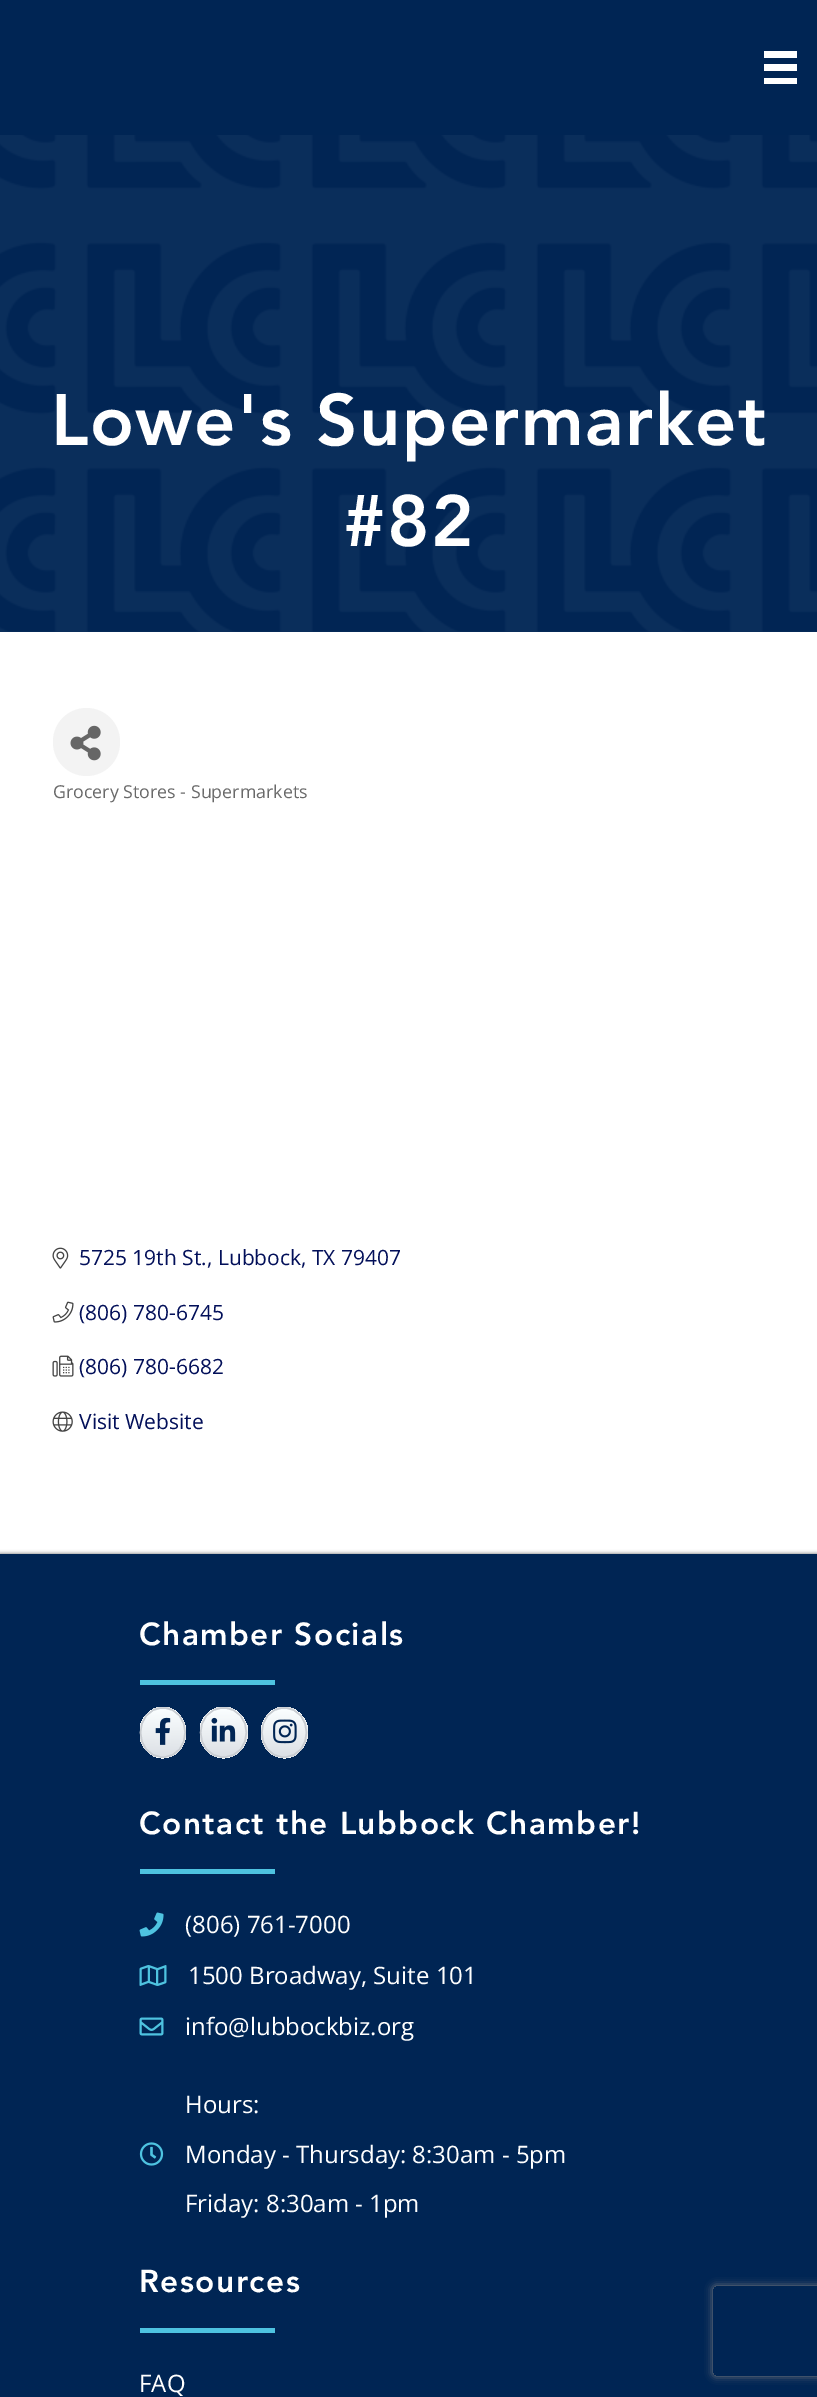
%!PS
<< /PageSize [817 2397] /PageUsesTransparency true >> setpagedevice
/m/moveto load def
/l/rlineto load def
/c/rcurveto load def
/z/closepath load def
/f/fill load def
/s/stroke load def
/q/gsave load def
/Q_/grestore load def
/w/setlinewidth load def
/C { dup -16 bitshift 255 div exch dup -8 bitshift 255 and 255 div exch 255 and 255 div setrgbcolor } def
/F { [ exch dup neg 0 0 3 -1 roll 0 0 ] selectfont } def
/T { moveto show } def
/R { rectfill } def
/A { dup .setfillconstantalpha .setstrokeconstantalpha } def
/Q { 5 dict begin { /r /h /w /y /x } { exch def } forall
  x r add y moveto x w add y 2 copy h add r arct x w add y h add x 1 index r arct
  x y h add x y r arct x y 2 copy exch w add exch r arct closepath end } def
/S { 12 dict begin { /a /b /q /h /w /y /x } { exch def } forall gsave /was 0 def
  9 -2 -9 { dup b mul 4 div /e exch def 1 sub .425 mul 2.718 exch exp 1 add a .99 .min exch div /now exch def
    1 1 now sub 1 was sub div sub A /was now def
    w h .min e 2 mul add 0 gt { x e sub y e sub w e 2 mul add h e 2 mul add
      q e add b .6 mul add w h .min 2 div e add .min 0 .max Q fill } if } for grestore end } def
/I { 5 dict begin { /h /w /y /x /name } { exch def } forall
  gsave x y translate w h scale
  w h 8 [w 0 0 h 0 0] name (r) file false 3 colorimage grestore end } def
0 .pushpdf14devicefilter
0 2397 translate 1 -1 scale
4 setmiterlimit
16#FFFFFF C
0 0 817 2397 R
16#0A2E5B C
0 135 817 497 R
16#002554 C
0 0 817 135 R
16#FFFFFF C
764 51 33 7 R
764 64 33 7 R
764 78 33 6 R
(1.rgb) 0 135 817 497 I
/Avenir-Black 72 F
51 445 m 1.5 0 (Lowe's Supermarket) ashow
343 546 m 1.5 0 (#82) ashow
16#F3F3F3 C
53 708 67 68 33.5 Q f
(2.rgb) 70 725 31 36 I
/OpenSans-Regular 17.8 F
16#696969 C
(Grocery Stores - Supermarkets) 53 798 T
(3.rgb) 52 1247 17 22 I
/OpenSans-Regular 21 F
16#020F59 C
(5725 19th St., Lubbock, TX 79407) 79 1265 T
(4.rgb) 52 1301 22 22 I
(\(806\) 780-6745) 79 1320 T
(5.rgb) 52 1355 22 22 I
(\(806\) 780-6682) 79 1374 T
(6.rgb) 52 1411 21 21 I
(Visit Website) 79 1429 T
16#282828 C
0 1554 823 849 0 2 .73 S
16#002554 C
0 1554 817 843 R
/Avenir-Black 31.5 F
16#FFFFFF C
139 1645 m 1.5 0 (Chamber Socials) ashow
16#4EC3E0 C
140 1680 135 5 R
q 163 1707 m 3 0 6 .5 9 2 c -18.5 0 l 3 -1.5 6 -2 9.5 -2 c z clip newpath
<< /ShadingType 2 /ColorSpace /DeviceRGB /Coords [163 1661 163 1709] /Extend [true true] /Function << /FunctionType 2 /Domain [0 1] /C0 [.98 .996 1] /C1 [.863 .878 .898] /N 1 >> >> shfill Q_
q 140 1727 m 2 -8 7 -15 14 -18 c 18 0 l 8 4 14 13 14 23 c 0 12 -7 22 -17 25 c -13 0 l -8 -3 -14 -10 -16 -19 c z clip newpath
<< /ShadingType 2 /ColorSpace /DeviceRGB /Coords [163 1709 163 1757] /Extend [true true] /Function << /FunctionType 2 /Domain [0 1] /C0 [.98 .996 1] /C1 [.863 .878 .898] /N 1 >> >> shfill Q_
q 169 1757 m -4 1.5 -8.5 1.5 -12.5 0 c z clip newpath
<< /ShadingType 2 /ColorSpace /DeviceRGB /Coords [163 1757 163 1805] /Extend [true true] /Function << /FunctionType 2 /Domain [0 1] /C0 [.98 .996 1] /C1 [.863 .878 .898] /N 1 >> >> shfill Q_
16#C8CCD1 C
1.5 w
163 1708 m 29.5 0 29.5 49 0 49 c -30 0 -30 -49 0 -49 c z s
(7.rgb) 155 1717 16 28 I
q 223.5 1707 m 3.5 0 6.5 .5 9.5 2 c -19 0 l 3 -1.5 6 -2 9.5 -2 c z clip newpath
<< /ShadingType 2 /ColorSpace /DeviceRGB /Coords [224 1661 224 1709] /Extend [true true] /Function << /FunctionType 2 /Domain [0 1] /C0 [.98 .996 1] /C1 [.863 .878 .898] /N 1 >> >> shfill Q_
q 200 1727 m 2 -8 7 -15 14 -18 c 19 0 l 8 4 15 13 15 23 c 0 12 -8 22 -18 25 c -13 0 l -9 -3 -15 -10 -17 -19 c z clip newpath
<< /ShadingType 2 /ColorSpace /DeviceRGB /Coords [224 1709 224 1757] /Extend [true true] /Function << /FunctionType 2 /Domain [0 1] /C0 [.98 .996 1] /C1 [.863 .878 .898] /N 1 >> >> shfill Q_
q 230 1757 m -4 1.5 -9 1.5 -13 0 c z clip newpath
<< /ShadingType 2 /ColorSpace /DeviceRGB /Coords [224 1757 224 1805] /Extend [true true] /Function << /FunctionType 2 /Domain [0 1] /C0 [.98 .996 1] /C1 [.863 .878 .898] /N 1 >> >> shfill Q_
223.5 1708 m 30.5 0 30.5 49 0 49 c -30.5 0 -30.5 -49 0 -49 c z s
(8.rgb) 211 1717 25 25 I
q 284 1707 m 3.5 0 6.5 .5 9.5 2 c -18.5 0 l 3 -1.5 6 -2 9 -2 c z clip newpath
<< /ShadingType 2 /ColorSpace /DeviceRGB /Coords [284 1661 284 1709] /Extend [true true] /Function << /FunctionType 2 /Domain [0 1] /C0 [.98 .996 1] /C1 [.863 .878 .898] /N 1 >> >> shfill Q_
q 278 1757 m -10 -3 -17 -13 -17 -25 c 0 -10 6 -19 14 -23 c 18 0 l 9 4 15 13 15 23 c 0 12 -8 22 -17 25 c z clip newpath
<< /ShadingType 2 /ColorSpace /DeviceRGB /Coords [284 1709 284 1757] /Extend [true true] /Function << /FunctionType 2 /Domain [0 1] /C0 [.98 .996 1] /C1 [.863 .878 .898] /N 1 >> >> shfill Q_
q 290.5 1757 m -4 1.5 -8.5 1.5 -12.5 0 c z clip newpath
<< /ShadingType 2 /ColorSpace /DeviceRGB /Coords [284 1757 284 1805] /Extend [true true] /Function << /FunctionType 2 /Domain [0 1] /C0 [.98 .996 1] /C1 [.863 .878 .898] /N 1 >> >> shfill Q_
284 1708 m 30 0 30 49 0 49 c -29.5 0 -29.5 -49 0 -49 c z s
(9.rgb) 273 1719 24 25 I
16#FFFFFF C
139 1834 m 1.5 0 (Contact the Lubbock Chamber!) ashow
16#4EC3E0 C
140 1869 135 5 R
(10.rgb) 139 1912 25 25 I
/OpenSans-Regular 24 F
16#FFFFFF C
(\(806\) 761-7000) 185 1933 T
(11.rgb) 139 1965 28 21 I
(1500 Broadway, Suite 101) 188 1984 T
(12.rgb) 139 2017 25 19 I
(info@lubbockbiz.org) 185 2035 T
(13.rgb) 139 2142 25 24 I
(Hours:) 185 2113 T
(Monday - Thursday: 8:30am - 5pm) 185 2163 T
(Friday: 8:30am - 1pm) 185 2212 T
/Avenir-Black 31.5 F
139 2292 m 1.5 0 (Resources) ashow
16#4EC3E0 C
140 2328 135 5 R
/OpenSans-Regular 24 F
16#FFFFFF C
(FAQ) 139 2392 T
q
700 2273 m 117 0 l 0 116 l -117 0 l z 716 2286 m 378 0 l 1.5 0 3 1.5 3 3 c 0 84 l 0 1.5 -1.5 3 -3 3 c -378 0 l -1.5 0 -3 -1.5 -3 -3 c 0 -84 l 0 -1.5 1.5 -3 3 -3 c z eoclip newpath
16#808080 C
713 2286 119 90 3 4 1 S
Q_
.poppdf14devicefilter showpage
